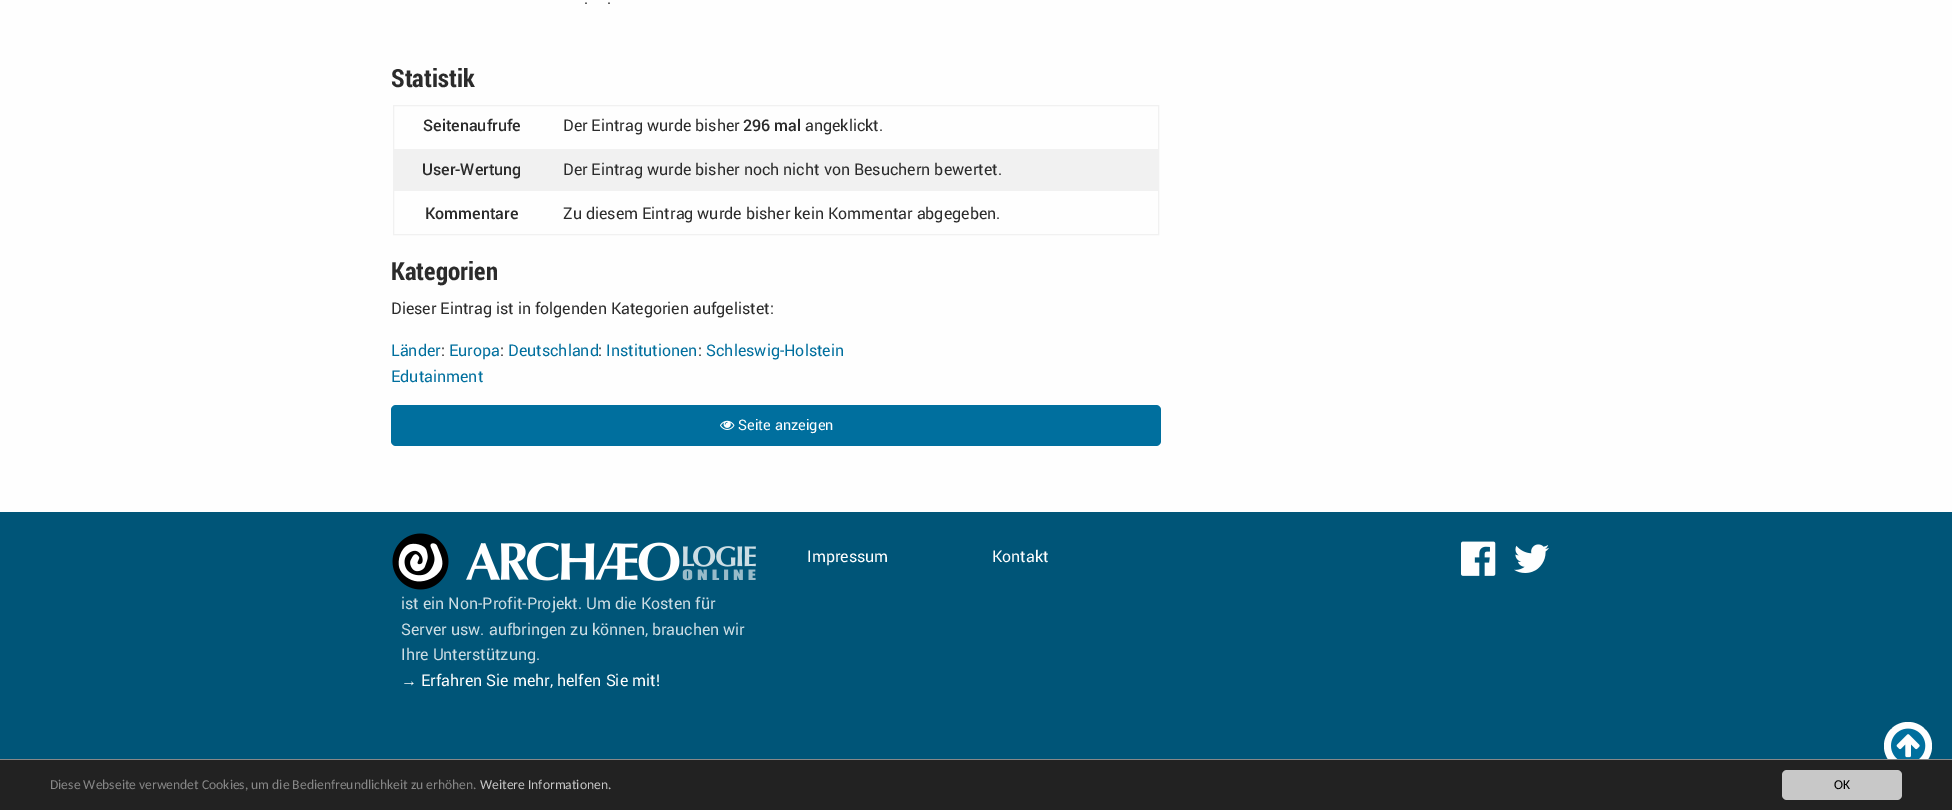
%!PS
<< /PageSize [1952 810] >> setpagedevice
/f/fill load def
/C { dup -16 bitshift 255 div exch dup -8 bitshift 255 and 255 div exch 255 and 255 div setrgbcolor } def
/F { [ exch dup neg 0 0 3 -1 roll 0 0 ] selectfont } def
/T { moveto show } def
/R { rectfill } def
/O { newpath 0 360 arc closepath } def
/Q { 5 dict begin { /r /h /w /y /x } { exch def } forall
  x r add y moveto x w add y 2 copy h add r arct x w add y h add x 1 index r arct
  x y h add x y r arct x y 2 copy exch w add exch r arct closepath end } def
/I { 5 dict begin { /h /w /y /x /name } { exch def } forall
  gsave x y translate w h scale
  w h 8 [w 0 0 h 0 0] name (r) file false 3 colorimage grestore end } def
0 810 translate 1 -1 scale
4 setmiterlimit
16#FEFEFE C
0 0 1952 810 R
/Roboto-Regular 16 F
16#2B2B2B C
(.) 584 4 T
(.) 607 4 T
/RobotoCondensed-Bold 25 F
(Statistik) 391 87 T
16#F1F1F1 C
393.5 105.5 765 129 rectstroke
/Roboto-Medium 16 F
16#2B2B2B C
(Seitenaufrufe) 423 131 T
/Roboto-Regular 16 F
(Der Eintrag wurde bisher) 563 131 T
/Roboto-Medium 16 F
(296 mal) 743 131 T
/Roboto-Regular 16 F
(angeklickt.) 805 131 T
16#F1F1F1 C
394 149 764 42 R
/Roboto-Medium 16 F
16#2B2B2B C
(User-Wertung) 422 175 T
/Roboto-Regular 16 F
(Der Eintrag wurde bisher noch nicht von Besuchern bewertet.) 563 175 T
/Roboto-Medium 16 F
(Kommentare) 425 219 T
/Roboto-Regular 16 F
(Zu diesem Eintrag wurde bisher kein Kommentar abgegeben.) 563 219 T
/RobotoCondensed-Bold 25 F
(Kategorien) 391 280 T
/Roboto-Regular 16 F
(Dieser Eintrag ist in folgenden Kategorien aufgelistet:) 391 314 T
16#006F9E C
(Länder) 391 356 T
16#2B2B2B C
(:) 441 356 T
16#006F9E C
(Europa) 449 356 T
16#2B2B2B C
(:) 500 356 T
16#006F9E C
(Deutschland) 508 356 T
16#2B2B2B C
(:) 598 356 T
16#006F9E C
(Institutionen) 606 356 T
16#2B2B2B C
(:) 698 356 T
16#006F9E C
(Schleswig-Holstein) 706 356 T
(Edutainment) 391 382 T
391 405 770 41 5 Q f
(1.rgb) 720 420 15 10 I
/Roboto-Regular 14.5 F
16#FEFEFE C
(Seite anzeigen) 738 430 T
16#005578 C
0 512 1952 247 R
/Roboto-Regular 16 F
16#FEFEFE C
(Impressum) 807 562 T
(Kontakt) 992 562 T
(2.rgb) 1461 541 35 35 I
(3.rgb) 1514 544 35 29 I
(4.rgb) 392 533 364 57 I
16#CCDDE4 C
(ist ein Non-Profit-Projekt. Um die Kosten für) 401 609 T
(Server usw. aufbringen zu können, brauchen wir) 401 635 T
(Ihre Unterstützung.) 401 660 T
/LiberationSans-Regular 16 F
16#FEFEFE C
(→) 401 686 T
/Roboto-Regular 16 F
(Erfahren Sie mehr, helfen Sie mit!) 421 686 T
1908 746 24 O f
(5.rgb) 1891 728 35 31 I
16#222222 C
0 760 1952 50 R
16#888888 C
0 759 1952 1 R
/Carlito-Regular 13.6 F
(Diese Webseite verwendet Cookies, um die Bedienfreundlichkeit zu erhöhen.) 50 789 T
16#C8C8C8 C
(Weitere Informationen.) 480 789 T
1782 770 120 30 5 Q f
16#000000 C
(OK) 1834 789 T
showpage
